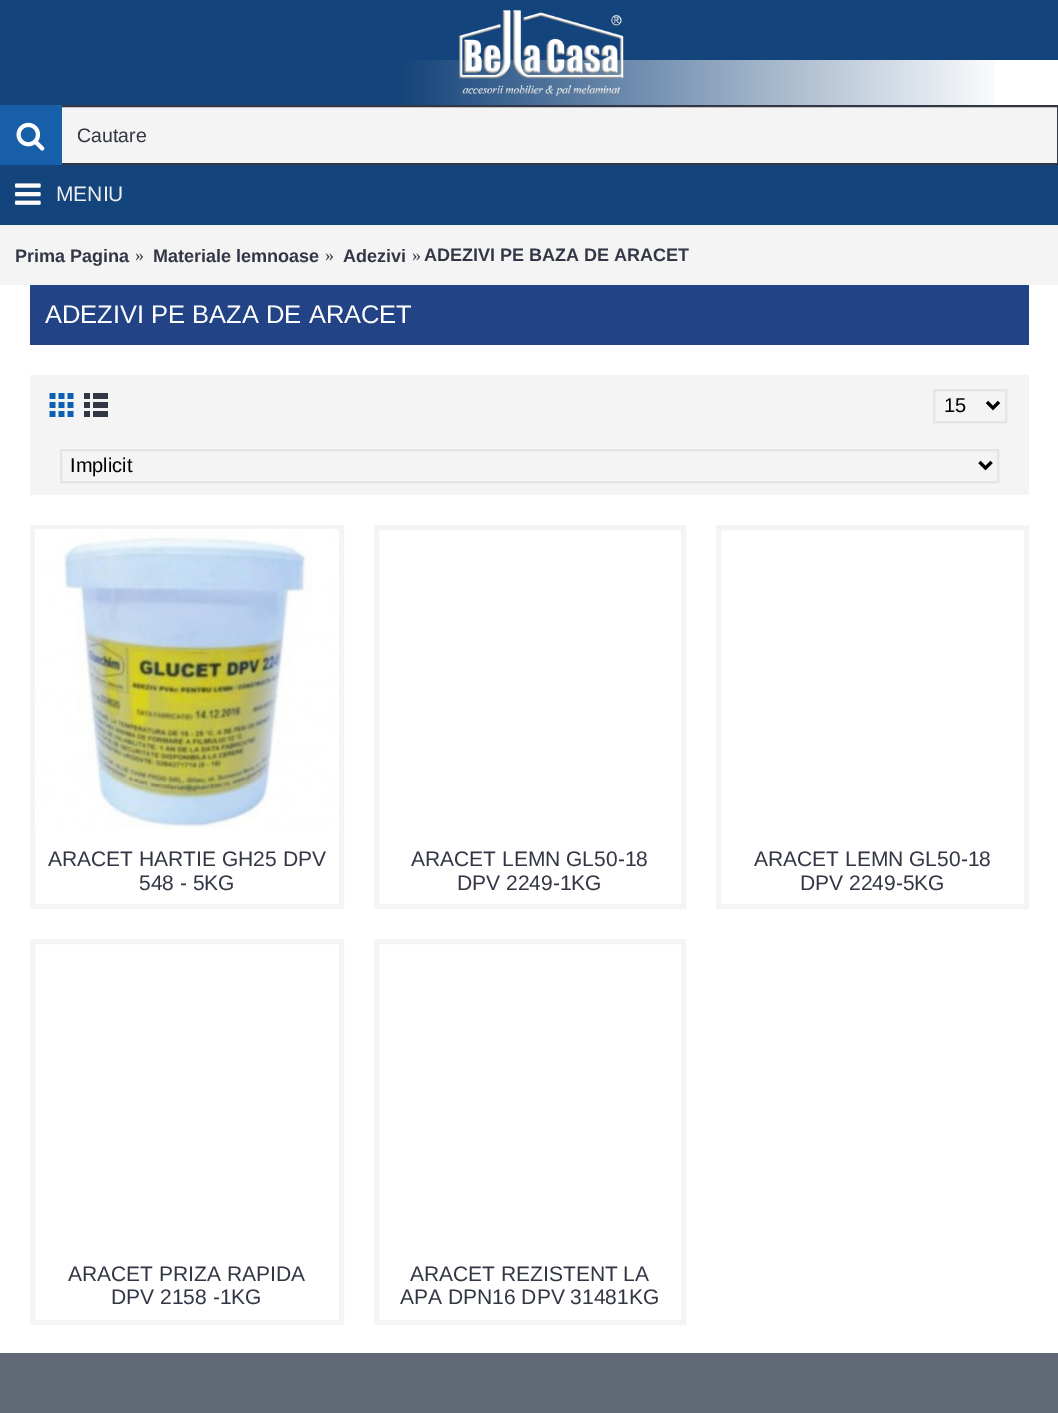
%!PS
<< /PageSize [1058 1413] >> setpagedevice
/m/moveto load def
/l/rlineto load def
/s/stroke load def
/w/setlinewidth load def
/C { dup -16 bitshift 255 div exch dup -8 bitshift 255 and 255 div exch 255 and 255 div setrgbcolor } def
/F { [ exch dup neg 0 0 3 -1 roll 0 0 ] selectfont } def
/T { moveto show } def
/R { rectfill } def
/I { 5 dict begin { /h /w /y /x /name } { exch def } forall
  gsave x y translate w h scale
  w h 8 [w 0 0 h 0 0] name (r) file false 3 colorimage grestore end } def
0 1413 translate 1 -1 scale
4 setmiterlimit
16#FFFFFF C
0 0 1058 1413 R
(1.rgb) 0 60 995 45 I
16#13447C C
0 0 1058 60 R
(2.rgb) 459 10 165 87 I
16#F4F4F4 C
62 107 995 56 R
16#333745 C
2 w
1 106 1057 58 rectstroke
16#175FA8 C
0 105 62 60 R
(3.rgb) 16 122 29 29 I
/LiberationSans-Regular 19.5 F
16#333745 C
(Cautare) 77 142 T
16#13447C C
0 165 1058 60 R
(4.rgb) 15 183 26 22 I
/LiberationSans-Regular 21 F
16#EEEEEE C
(MENIU) 56 201 T
16#5F6874 C
0 1353 1058 60 R
16#F4F4F4 C
0 225 1058 60 R
/LiberationSans-Bold 18 F
16#333745 C
(Prima Pagina) 15 262 T
/LiberationSerif-Regular 18 F
(») 135 261 T
/LiberationSans-Bold 18 F
(Materiale lemnoase) 153 262 T
/LiberationSerif-Regular 18 F
(») 325 261 T
/LiberationSans-Bold 18 F
(Adezivi) 343 262 T
/LiberationSerif-Regular 18 F
(») 412 261 T
/LiberationSans-Bold 18 F
(ADEZIVI PE BAZA DE ARACET) 424 261 T
16#224487 C
30 285 999 60 R
/LiberationSans-Regular 25.5 F
16#FFFFFF C
(ADEZIVI PE BAZA DE ARACET) 45 323 T
16#F4F4F4 C
30 375 999 120 R
(5.rgb) 49 393 25 24 I
(6.rgb) 84 393 24 24 I
16#E4E4E4 C
934 390 72 32 rectstroke
16#000000 C
3 w
987 402 m 6 6 l 6 -6 l s
/LiberationSans-Regular 20 F
(15) 944 412 T
16#E4E4E4 C
2 w
61 450 937 32 rectstroke
16#000000 C
3 w
979.5 462 m 6 6 l 6 -6 l s
(Implicit) 70 472 T
16#F4F4F4 C
5 w
32.5 527.5 309 379 rectstroke
(7.rgb) 35 529 304 300 I
/LiberationSans-Regular 21 F
16#333745 C
(ARACET HARTIE GH25 DPV) 48 866 T
(548 - 5KG) 139 890 T
16#F4F4F4 C
376.5 527.5 307 379 rectstroke
16#333745 C
(ARACET LEMN GL50-18) 411 866 T
(DPV 2249-1KG) 457 890 T
16#F4F4F4 C
718.5 527.5 308 379 rectstroke
16#333745 C
(ARACET LEMN GL50-18) 754 866 T
(DPV 2249-5KG) 800 890 T
16#F4F4F4 C
32.5 941.5 309 381 rectstroke
16#333745 C
(ARACET PRIZA RAPIDA) 68 1281 T
(DPV 2158 -1KG) 111 1304 T
16#F4F4F4 C
376.5 941.5 307 381 rectstroke
16#333745 C
(ARACET REZISTENT LA) 410 1281 T
(APA DPN16 DPV 31481KG) 400 1304 T
showpage
